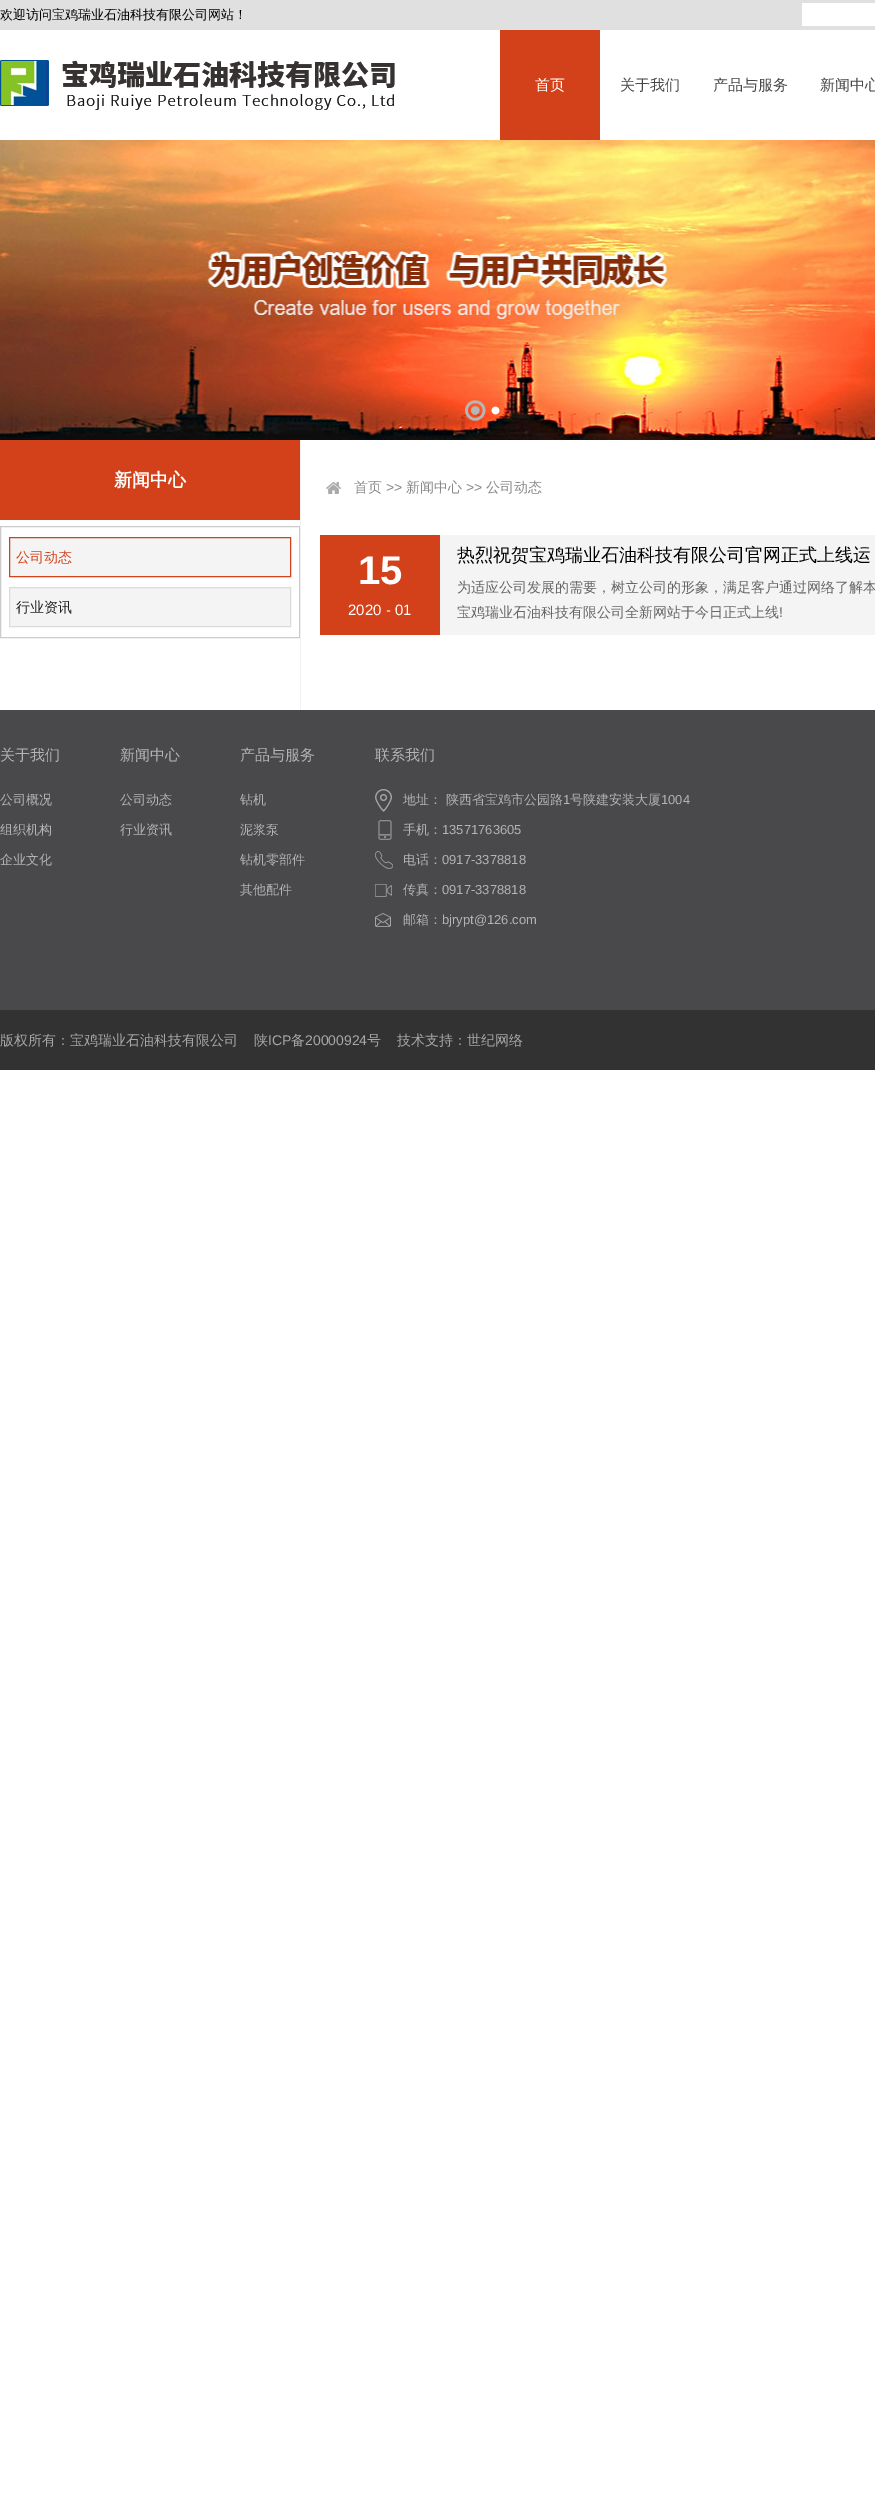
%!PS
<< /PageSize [875 2508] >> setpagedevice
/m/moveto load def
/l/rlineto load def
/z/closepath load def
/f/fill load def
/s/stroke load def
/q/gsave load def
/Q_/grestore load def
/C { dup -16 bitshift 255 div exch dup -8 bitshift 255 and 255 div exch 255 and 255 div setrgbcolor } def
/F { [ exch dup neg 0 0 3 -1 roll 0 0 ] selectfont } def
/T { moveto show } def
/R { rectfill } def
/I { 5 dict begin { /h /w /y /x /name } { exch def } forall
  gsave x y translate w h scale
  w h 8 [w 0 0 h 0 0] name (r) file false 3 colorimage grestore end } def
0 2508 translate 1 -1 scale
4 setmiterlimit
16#FFFFFF C
0 0 875 2508 R
16#E0E0E0 C
0 0 875 30 R
/WenQuanYiZenHei-Medium 13 F
16#000000 C
(欢迎访问宝鸡瑞业石油科技有限公司网站！) 0 19 T
16#FFFFFF C
802 3 73 23 R
(1.rgb) 0 60 395 50 I
16#D3411A C
500 30 100 110 R
/WenQuanYiZenHei-Medium 15 F
16#FFFFFF C
(首页) 535 90 T
16#474747 C
(关于我们) 620 90 T
(产品与服务) 713 90 T
(新闻中心) 820 90 T
(2.rgb) 0 140 875 300 I
(3.rgb) 465 400 21 21 I
(4.rgb) 491 406 9 9 I
16#D3411A C
0 440 300 80 R
/WenQuanYiZenHei-Bold 18 F
16#FFFFFF C
(新闻中心) 114 486 T
16#CBCBCB C
.5 526.5 299 111 rectstroke
16#F4F4F4 C
9.5 537.5 m 281 0 l 0 39 l -281 0 l z q f Q_
16#D3411A C
s
/WenQuanYiZenHei-Medium 14 F
(公司动态) 16 562 T
16#F4F4F4 C
9.5 587.5 m 281 0 l 0 39 l -281 0 l z q f Q_
16#DCDCDC C
s
16#222222 C
(行业资讯) 16 612 T
16#F1F1F1 C
300 440 1 270 R
(5.rgb) 326 482 15 12 I
16#888888 C
(首页) 354 492 T
/LiberationSans-Regular 14 F
(>>) 386 492 T
/WenQuanYiZenHei-Medium 14 F
(新闻中心) 406 492 T
/LiberationSans-Regular 14 F
(>>) 466 492 T
/WenQuanYiZenHei-Medium 14 F
(公司动态) 486 492 T
16#F4F4F4 C
440 535 435 100 R
16#D3411A C
320 535 120 100 R
/LiberationSans-Bold 40 F
16#FFFFFF C
(15) 358 584 T
/LiberationSans-Regular 15 F
(2020 - 01) 348 615 T
/WenQuanYiZenHei-Medium 18 F
16#000000 C
(热烈祝贺宝鸡瑞业石油科技有限公司官网正式上线运) 457 561 T
/WenQuanYiZenHei-Medium 14 F
16#666666 C
(为适应公司发展的需要，树立公司的形象，满足客户通过网络了解本) 457 592 T
(宝鸡瑞业石油科技有限公司全新网站于今日正式上线) 457 617 T
/LiberationSans-Regular 14 F
(!) 779 617 T
16#49494B C
0 710 875 300 R
/WenQuanYiZenHei-Medium 15 F
16#B4B4B4 C
(关于我们) 0 760 T
/WenQuanYiZenHei-Medium 13 F
(公司概况) 0 804 T
(组织机构) 0 834 T
(企业文化) 0 864 T
/WenQuanYiZenHei-Medium 15 F
(新闻中心) 120 760 T
/WenQuanYiZenHei-Medium 13 F
(公司动态) 120 804 T
(行业资讯) 120 834 T
/WenQuanYiZenHei-Medium 15 F
(产品与服务) 240 760 T
/WenQuanYiZenHei-Medium 13 F
(钻机) 240 804 T
(泥浆泵) 240 834 T
(钻机零部件) 240 864 T
(其他配件) 240 894 T
/WenQuanYiZenHei-Medium 15 F
(联系我们) 375 760 T
(6.rgb) 375 789 17 23 I
/WenQuanYiZenHei-Medium 13 F
(地址： 陕西省宝鸡市公园路) 403 804 T
/LiberationSans-Regular 13 F
(1) 563 804 T
/WenQuanYiZenHei-Medium 13 F
(号陕建安装大厦) 570 804 T
/LiberationSans-Regular 13 F
(1004) 661 804 T
(7.rgb) 378 820 14 20 I
/WenQuanYiZenHei-Medium 13 F
(手机：) 403 834 T
/LiberationSans-Regular 13 F
(13571763605) 442 834 T
(8.rgb) 375 851 18 18 I
/WenQuanYiZenHei-Medium 13 F
(电话：) 403 864 T
/LiberationSans-Regular 13 F
(0917-3378818) 442 864 T
(9.rgb) 375 884 17 13 I
/WenQuanYiZenHei-Medium 13 F
(传真：) 403 894 T
/LiberationSans-Regular 13 F
(0917-3378818) 442 894 T
(10.rgb) 375 913 16 14 I
/WenQuanYiZenHei-Medium 13 F
(邮箱：) 403 924 T
/LiberationSans-Regular 13 F
(bjrypt@126.com) 442 924 T
16#323232 C
0 1010 875 60 R
/WenQuanYiZenHei-Medium 14 F
16#A7A7A7 C
(版权所有：宝鸡瑞业石油科技有限公司) 0 1045 T
(陕) 254 1045 T
/LiberationSans-Regular 14 F
(ICP) 268 1045 T
/WenQuanYiZenHei-Medium 14 F
(备) 291 1045 T
/LiberationSans-Regular 14 F
(20000924) 305 1045 T
/WenQuanYiZenHei-Medium 14 F
(号) 367 1045 T
(技术支持：世纪网络) 397 1045 T
showpage
